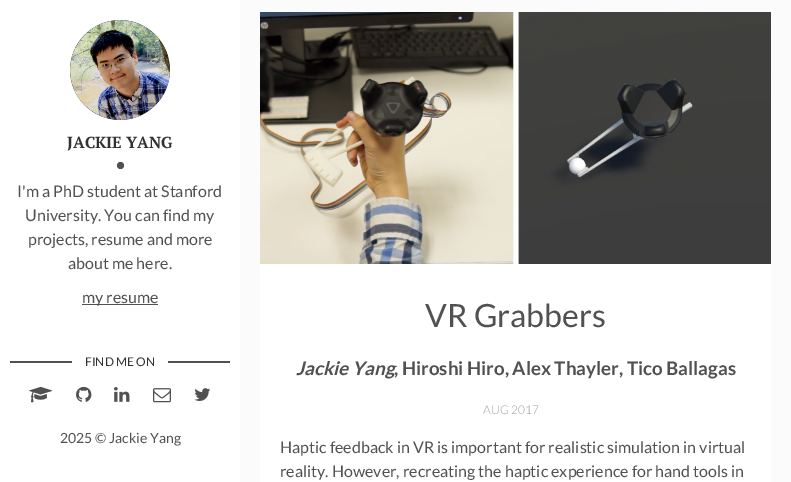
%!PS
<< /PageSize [791 482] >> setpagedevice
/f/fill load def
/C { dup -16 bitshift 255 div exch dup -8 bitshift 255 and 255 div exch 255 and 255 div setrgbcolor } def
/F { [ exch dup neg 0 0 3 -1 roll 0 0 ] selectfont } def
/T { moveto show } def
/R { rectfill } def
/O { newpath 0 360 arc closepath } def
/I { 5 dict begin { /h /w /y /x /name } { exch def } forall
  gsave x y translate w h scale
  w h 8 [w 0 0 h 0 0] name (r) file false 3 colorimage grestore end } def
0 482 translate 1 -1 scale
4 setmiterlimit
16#FBFBFB C
0 0 791 482 R
16#FFFFFF C
0 0 240 482 R
16#333030 C
120 70 50 O f
(1.rgb) 70 20 100 100 I
/PTSerif-Bold 16 F
(JACKIE YANG) 67 148 T
16#515151 C
120.5 165.5 3.5 O f
/Lato-Regular 16 F
(I'm a PhD student at Stanford) 17 197 T
(University. You can find my) 25 221 T
(projects, resume and more) 28 245 T
(about me here.) 68 269 T
82 304 76 1 R
(my resume) 82 303 T
10 361 62 2 R
/Lato-Regular 12 F
16#333030 C
(FIND ME ON) 85 366 T
16#515151 C
168 361 62 2 R
(2.rgb) 29 386 24 17 I
(3.rgb) 76 386 16 16 I
(4.rgb) 114 387 16 15 I
(5.rgb) 153 388 18 15 I
(6.rgb) 194 388 17 13 I
/Lato-Regular 14 F
(2025 © Jackie Yang) 60 443 T
16#FFFFFF C
260 264 511 218 R
(7.rgb) 260 12 511 252 I
/Lato-Regular 32 F
16#515151 C
(VR Grabbers) 425 327 T
/Lato-BoldItalic 18.75 F
(Jackie Yang) 296 375 T
/Lato-Bold 18.75 F
(, Hiroshi Hiro, Alex Thayler, Tico Ballagas) 394 375 T
/Lato-Light 12 F
16#A0A0A0 C
(AUG 2017) 483 414 T
/Lato-Regular 16 F
16#515151 C
(Haptic feedback in VR is important for realistic simulation in virtual) 280 453 T
(reality. However, recreating the haptic experience for hand tools in) 280 477 T
showpage
